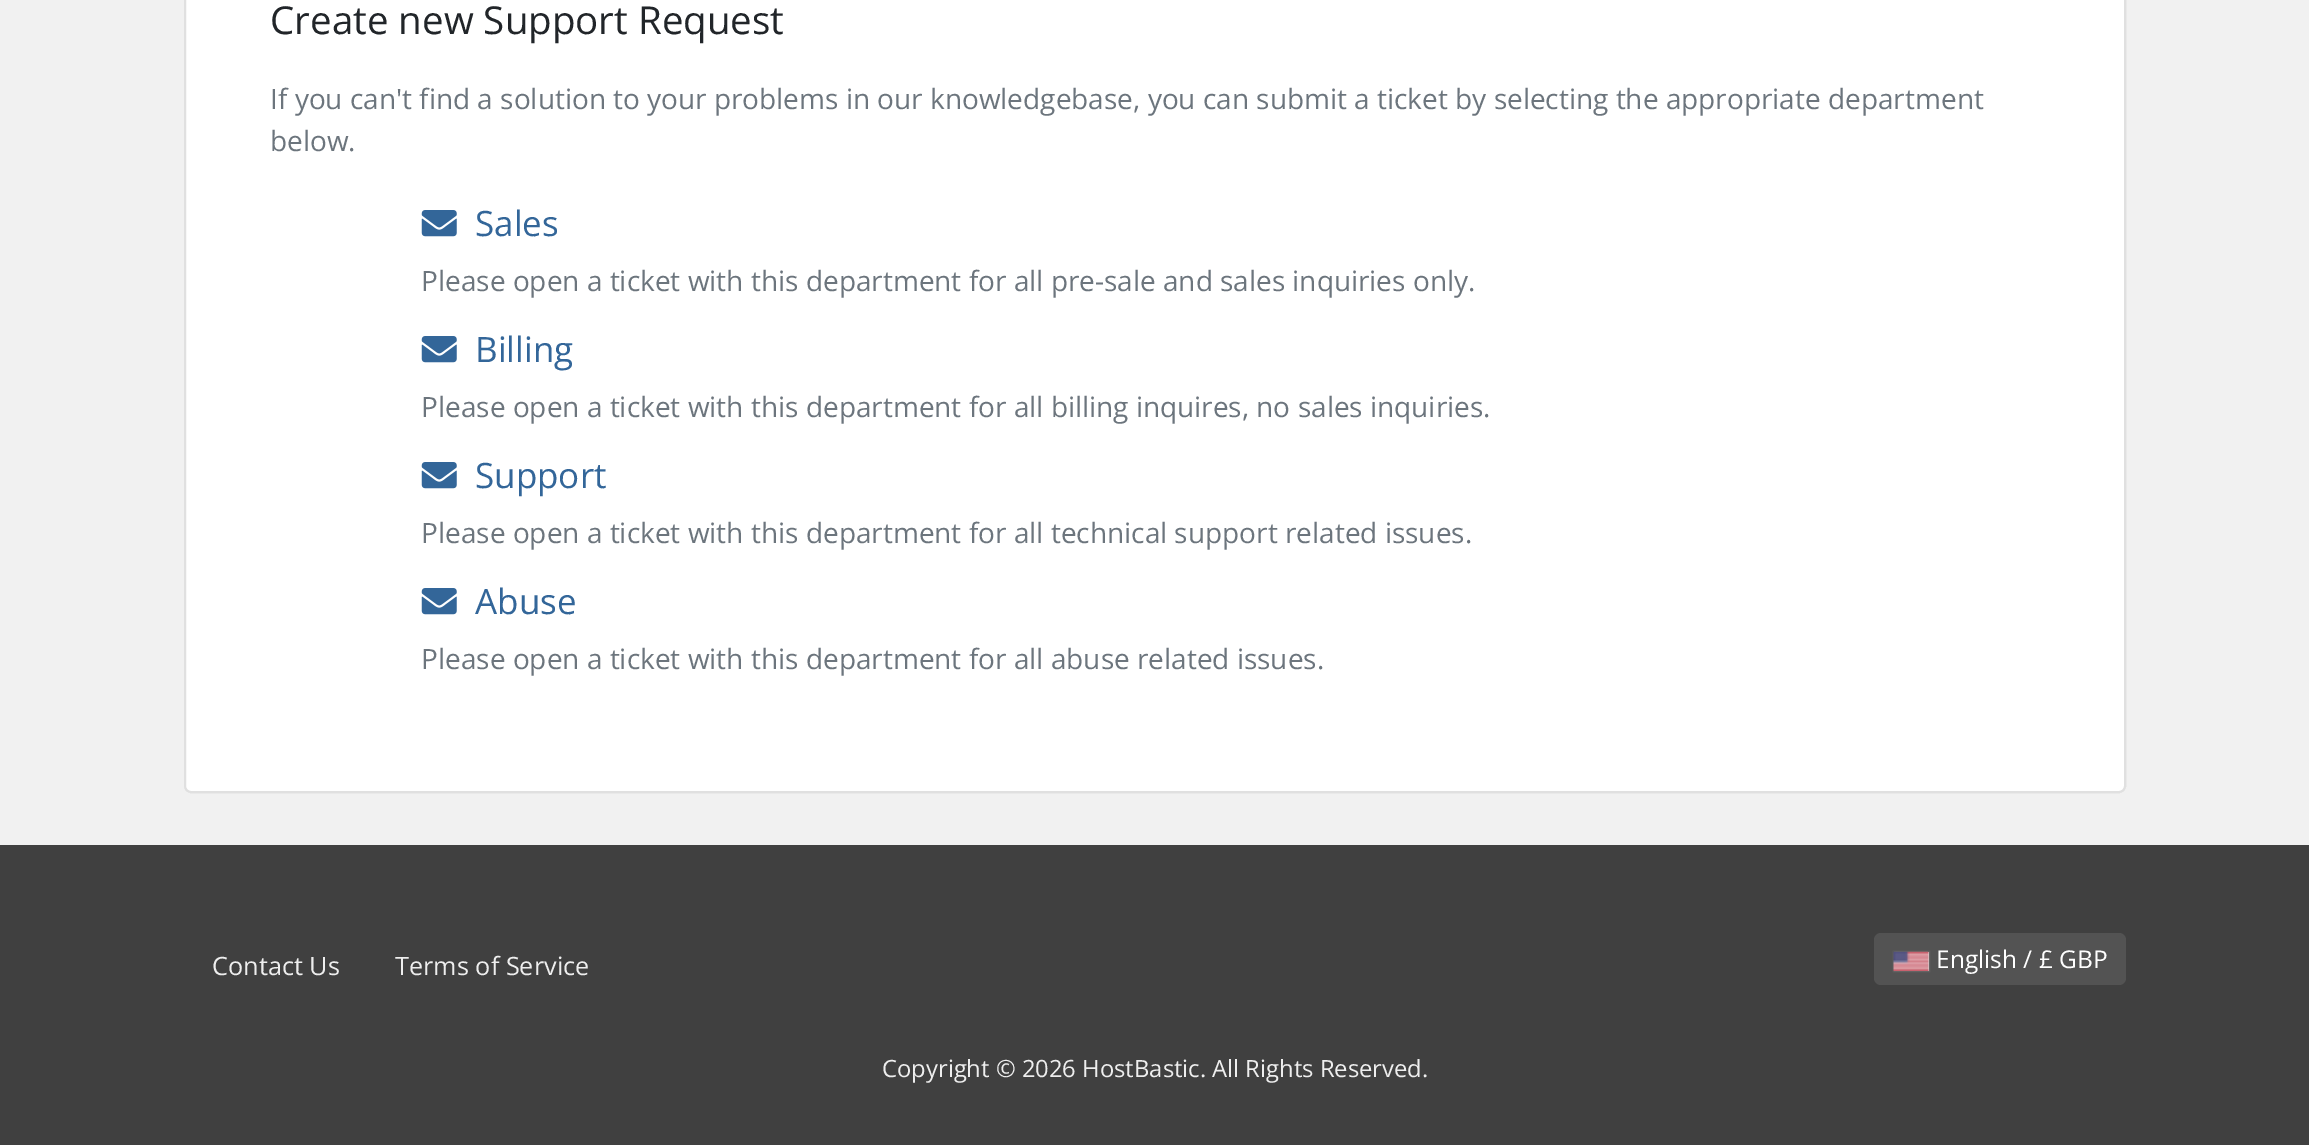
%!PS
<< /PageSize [2309 1145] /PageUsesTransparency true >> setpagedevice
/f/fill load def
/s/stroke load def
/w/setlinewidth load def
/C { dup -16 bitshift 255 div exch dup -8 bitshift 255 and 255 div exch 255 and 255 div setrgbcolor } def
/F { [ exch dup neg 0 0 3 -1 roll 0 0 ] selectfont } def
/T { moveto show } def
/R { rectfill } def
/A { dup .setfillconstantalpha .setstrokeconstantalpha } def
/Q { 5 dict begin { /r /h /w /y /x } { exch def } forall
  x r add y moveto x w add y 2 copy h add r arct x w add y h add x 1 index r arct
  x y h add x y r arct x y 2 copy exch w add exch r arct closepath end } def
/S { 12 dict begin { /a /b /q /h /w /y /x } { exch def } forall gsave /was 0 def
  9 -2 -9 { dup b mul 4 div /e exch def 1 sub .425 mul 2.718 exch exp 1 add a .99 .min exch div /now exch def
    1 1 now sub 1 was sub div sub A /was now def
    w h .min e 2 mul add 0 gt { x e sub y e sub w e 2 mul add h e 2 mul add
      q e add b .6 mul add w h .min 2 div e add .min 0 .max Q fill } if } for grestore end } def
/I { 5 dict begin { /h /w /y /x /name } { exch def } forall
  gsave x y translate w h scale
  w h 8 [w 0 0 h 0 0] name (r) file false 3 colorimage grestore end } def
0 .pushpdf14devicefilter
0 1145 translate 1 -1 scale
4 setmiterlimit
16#F1F1F1 C
0 0 2309 1145 R
16#FFFFFF C
184 -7 1942 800 7 Q f
0.12 A
16#000000 C
2 w
185 -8 1940 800 6 Q s
/OpenSans-Regular 38.5 F
1 A
16#212529 C
(Create new Support Request) 270 34 T
/OpenSans-Regular 28 F
16#6C757D C
(If you can't find a solution to your problems in our knowledgebase, you can submit a ticket by selecting the appropriate department) 270 109 T
(below.) 270 151 T
(1.rgb) 421 210 36 27 I
/OpenSans-Regular 35 F
16#336699 C
(Sales) 475 236 T
/OpenSans-Regular 28 F
16#6C757D C
(Please open a ticket with this department for all pre-sale and sales inquiries only.) 421 291 T
(1.rgb) 421 336 36 27 I
/OpenSans-Regular 35 F
16#336699 C
(Billing) 475 362 T
/OpenSans-Regular 28 F
16#6C757D C
(Please open a ticket with this department for all billing inquires, no sales inquiries.) 421 417 T
(1.rgb) 421 462 36 27 I
/OpenSans-Regular 35 F
16#336699 C
(Support) 475 488 T
/OpenSans-Regular 28 F
16#6C757D C
(Please open a ticket with this department for all technical support related issues.) 421 543 T
(1.rgb) 421 588 36 27 I
/OpenSans-Regular 35 F
16#336699 C
(Abuse) 475 614 T
/OpenSans-Regular 28 F
16#6C757D C
(Please open a ticket with this department for all abuse related issues.) 421 669 T
16#404040 C
0 845 2309 300 R
/OpenSans-Regular 25.25 F
16#EEEEEE C
(Contact Us) 212 975 T
(Terms of Service) 395 975 T
16#535353 C
1874 933 252 52 7 Q f
16#888888 C
1894 952 35 19 0 1 1 S
16#DBDBDB C
1928 952 1 19 R
(2.rgb) 1893 951 36 20 I
/OpenSans-Regular 24.5 F
16#FFFFFF C
(English / £ GBP) 1936 968 T
/OpenSans-Regular 23.8 F
16#EEEEEE C
(Copyright © 2026 HostBastic. All Rights Reserved.) 882 1077 T
.poppdf14devicefilter showpage
